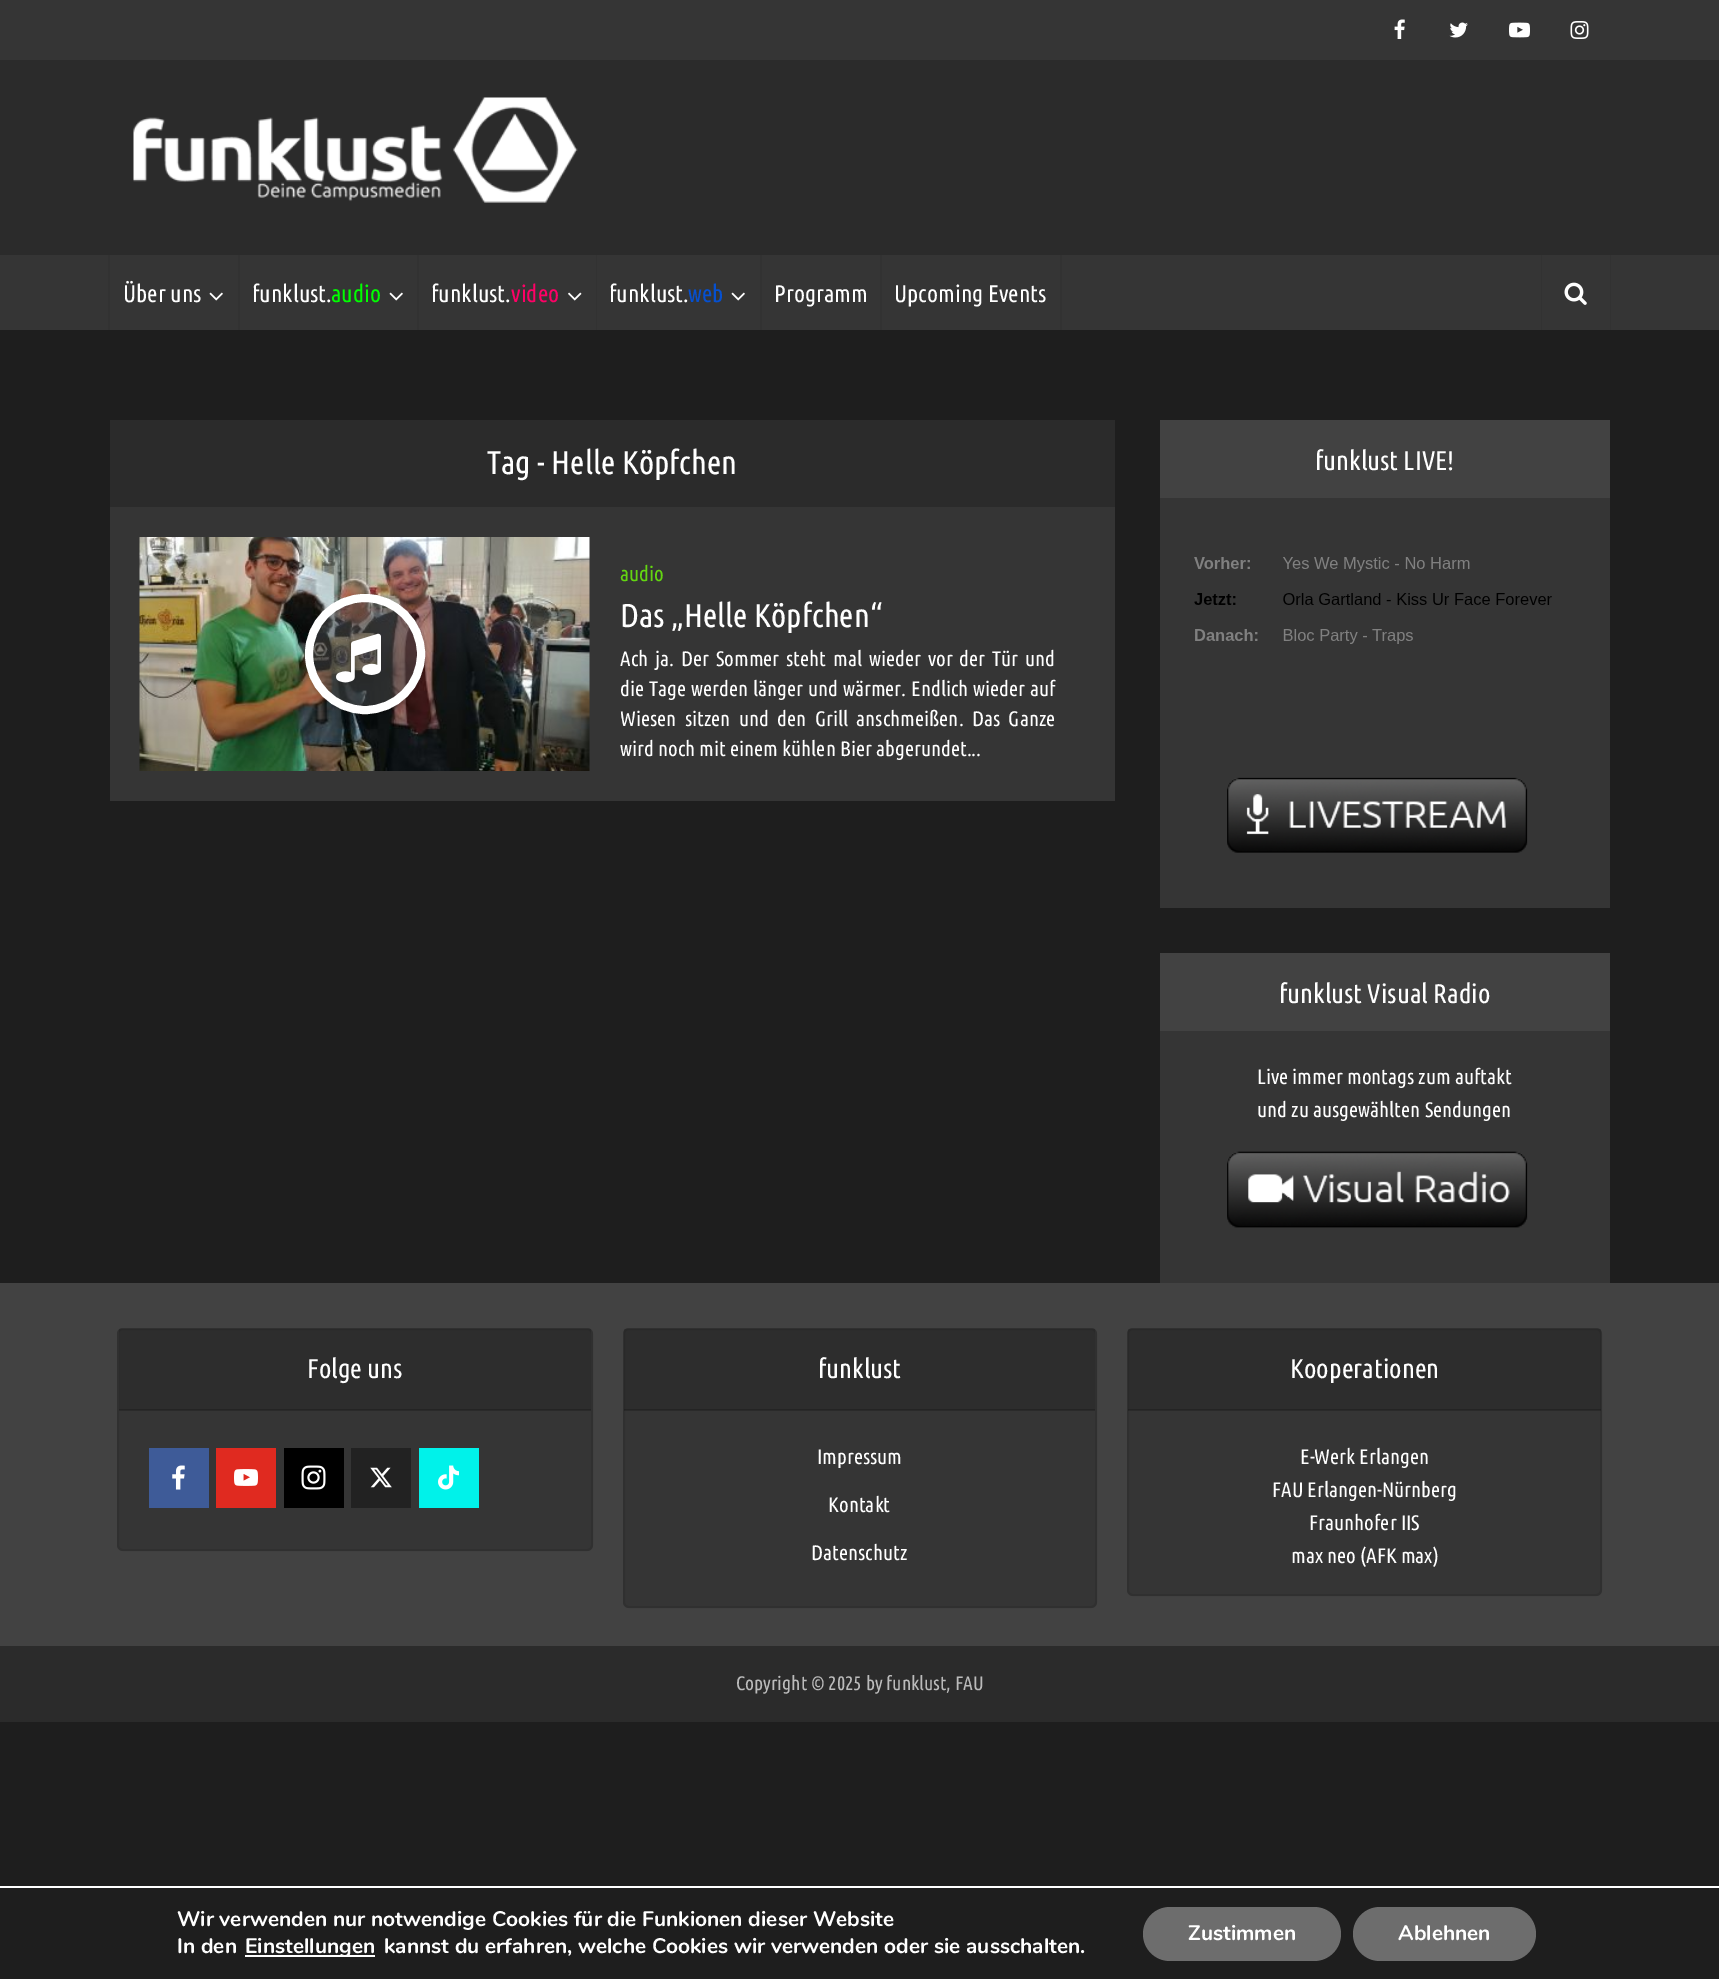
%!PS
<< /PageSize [1719 1979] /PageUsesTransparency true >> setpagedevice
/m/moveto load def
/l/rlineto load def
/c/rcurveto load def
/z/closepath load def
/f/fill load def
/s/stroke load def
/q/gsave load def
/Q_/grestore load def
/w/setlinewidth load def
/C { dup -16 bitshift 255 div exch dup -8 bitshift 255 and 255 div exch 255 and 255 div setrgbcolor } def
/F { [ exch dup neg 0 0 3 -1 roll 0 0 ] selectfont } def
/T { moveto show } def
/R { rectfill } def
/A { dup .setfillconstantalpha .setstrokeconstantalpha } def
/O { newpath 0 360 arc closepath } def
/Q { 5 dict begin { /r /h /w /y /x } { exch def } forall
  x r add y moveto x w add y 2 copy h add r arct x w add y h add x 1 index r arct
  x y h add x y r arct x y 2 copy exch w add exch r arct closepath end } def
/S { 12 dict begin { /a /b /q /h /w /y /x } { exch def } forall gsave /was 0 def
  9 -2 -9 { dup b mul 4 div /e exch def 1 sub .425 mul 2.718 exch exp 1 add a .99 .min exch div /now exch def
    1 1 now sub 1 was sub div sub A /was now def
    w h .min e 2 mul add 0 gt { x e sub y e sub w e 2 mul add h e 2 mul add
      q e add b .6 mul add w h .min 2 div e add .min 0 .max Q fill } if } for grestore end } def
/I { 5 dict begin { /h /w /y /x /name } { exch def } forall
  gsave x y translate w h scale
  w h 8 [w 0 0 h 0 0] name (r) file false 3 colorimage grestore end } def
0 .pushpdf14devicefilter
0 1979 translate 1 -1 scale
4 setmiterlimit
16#1E1E1E C
0 0 1719 1979 R
16#2B2B2B C
0 60 1719 195 R
16#353535 C
0 0 1719 60 R
(1.rgb) 1394 19 11 20 I
(2.rgb) 1449 22 19 16 I
(3.rgb) 1509 22 21 16 I
(4.rgb) 1570 21 19 18 I
(5.rgb) 133 97 445 106 I
0 255 1719 75 R
16#323232 C
238 255 2 75 R
108 255 2 75 R
/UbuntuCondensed-Regular 24 F
16#FFFFFF C
(Über uns) 123 302 T
(6.rgb) 209 292 14 9 I
16#323232 C
417 255 2 75 R
16#FFFFFF C
(funklust.) 252 302 T
16#00FF00 C
(audio) 331 302 T
(6.rgb) 389 292 14 9 I
16#323232 C
596 255 1 75 R
16#FFFFFF C
(funklust.) 431 302 T
16#FF0066 C
(video) 511 302 T
(7.rgb) 568 292 14 9 I
16#323232 C
760 255 2 75 R
16#FFFFFF C
(funklust.) 609 302 T
16#0550D1 C
(web) 688 302 T
(6.rgb) 731 292 14 9 I
16#323232 C
880 255 2 75 R
16#FFFFFF C
(Programm) 774 302 T
16#323232 C
1060 255 2 75 R
16#FFFFFF C
(Upcoming Events) 894 302 T
16#323232 C
1610 255 1 75 R
1541 255 1 75 R
(8.rgb) 1564 282 23 23 I
16#353535 C
110 507 1005 294 R
16#2B2B2B C
110 420 1005 87 R
/UbuntuCondensed-Regular 33 F
16#FFFFFF C
(Tag - Helle Köpfchen) 487 474 T
(9.rgb) 139 537 451 234 I
q
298 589 m 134 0 l 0 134 l -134 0 l z 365 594 m 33 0 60 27 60 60 c 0 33 -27 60 -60 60 c -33 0 -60 -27 -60 -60 c 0 -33 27 -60 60 -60 c z eoclip newpath
16#000000 C
305 596 120 120 60 2 .2 S
Q_
0.5 A
16#4A4A4A C
365 654 56 O f
1 A
16#FFFFFF C
8 w
365 654 56 O s
(10.rgb) 336 633 45 50 I
/UbuntuCondensed-Regular 21 F
16#63D611 C
(audio) 620 581 T
/UbuntuCondensed-Regular 33 F
16#FFFFFF C
(Das „Helle Köpfchen“) 620 627 T
/UbuntuCondensed-Regular 21 F
620 666 m 2.75 0 32 (Ach ja. Der Sommer steht mal wieder vor der Tür und) widthshow
620 696 m .75 0 32 (die Tage werden länger und wärmer. Endlich wieder auf) widthshow
620 726 m 4.25 0 32 (Wiesen sitzen und den Grill anschmeißen. Das Ganze) widthshow
(wird noch mit einem kühlen Bier abgerundet...) 620 756 T
16#353535 C
1160 498 450 410 R
16#424242 C
1160 420 450 78 R
/UbuntuCondensed-Regular 27 F
16#FFFFFF C
(funklust LIVE!) 1315 470 T
(11.rgb) 1194 557 358 87 I
(12.rgb) 1227 777 301 76 I
16#353535 C
1160 1031 450 252 R
16#424242 C
1160 953 450 78 R
16#FFFFFF C
(funklust Visual Radio) 1279 1003 T
/UbuntuCondensed-Regular 21 F
(Live immer montags zum auftakt) 1257 1084 T
(und zu ausgewählten Sendungen) 1257 1117 T
(13.rgb) 1227 1151 301 77 I
16#424242 C
0 1283 1719 363 R
16#353535 C
117 1328 476 223 6 Q f
0.1 A
16#000000 C
2 w
118 1329 474 221 5 Q s
0.15 A
119 1329 472 81 R
0.2 A
119 1409 472 2 R
/UbuntuCondensed-Regular 27 F
1 A
16#FFFFFF C
(Folge uns) 307 1378 T
16#3E5B98 C
149 1448 60 60 R
(14.rgb) 172 1465 13 25 I
16#E02A20 C
216 1448 60 60 R
(15.rgb) 234 1469 24 17 I
16#000000 C
284 1448 60 60 R
(16.rgb) 301 1465 25 25 I
16#222222 C
351 1448 60 60 R
(17.rgb) 370 1467 22 21 I
16#00F2EA C
419 1448 60 60 R
(18.rgb) 438 1465 21 25 I
16#353535 C
623 1328 474 280 6 Q f
0.1 A
16#000000 C
624 1329 472 278 5 Q s
0.15 A
624 1329 471 81 R
0.2 A
624 1409 471 2 R
1 A
16#FFFFFF C
(funklust) 818 1378 T
/UbuntuCondensed-Regular 21 F
(Impressum) 817 1464 T
(Kontakt) 828 1512 T
(Datenschutz) 811 1560 T
16#353535 C
1127 1328 475 268 6 Q f
0.1 A
16#000000 C
1128 1329 473 266 5 Q s
0.15 A
1128 1329 473 81 R
0.2 A
1128 1409 473 2 R
/UbuntuCondensed-Regular 27 F
1 A
16#FFFFFF C
(Kooperationen) 1290 1378 T
/UbuntuCondensed-Regular 21 F
(E-Werk Erlangen) 1300 1464 T
(FAU Erlangen-Nürnberg) 1272 1497 T
(Fraunhofer IIS) 1309 1530 T
(max neo \(AFK max\)) 1291 1563 T
16#2B2B2B C
0 1646 1719 76 R
/UbuntuCondensed-Regular 19.5 F
16#BBBBBB C
(Copyright © 2025 by funklust, FAU) 736 1690 T
16#FFFFFF C
0 1886 1719 2 R
/Nunito-Bold 21 F
(Wir verwenden nur notwendige Cookies für die Funkionen dieser Website) 177 1926 T
(In den) 177 1953 T
245 1955 130 2 R
(Einstellungen) 245 1953 T
(kannst du erfahren, welche Cookies wir verwenden oder sie ausschalten.) 384 1953 T
16#6D6D6D C
1143 1907 198 54 27 Q f
16#FFFFFF C
(Zustimmen) 1188 1940 T
16#6D6D6D C
1353 1907 183 54 27 Q f
16#FFFFFF C
(Ablehnen) 1398 1940 T
.poppdf14devicefilter showpage
